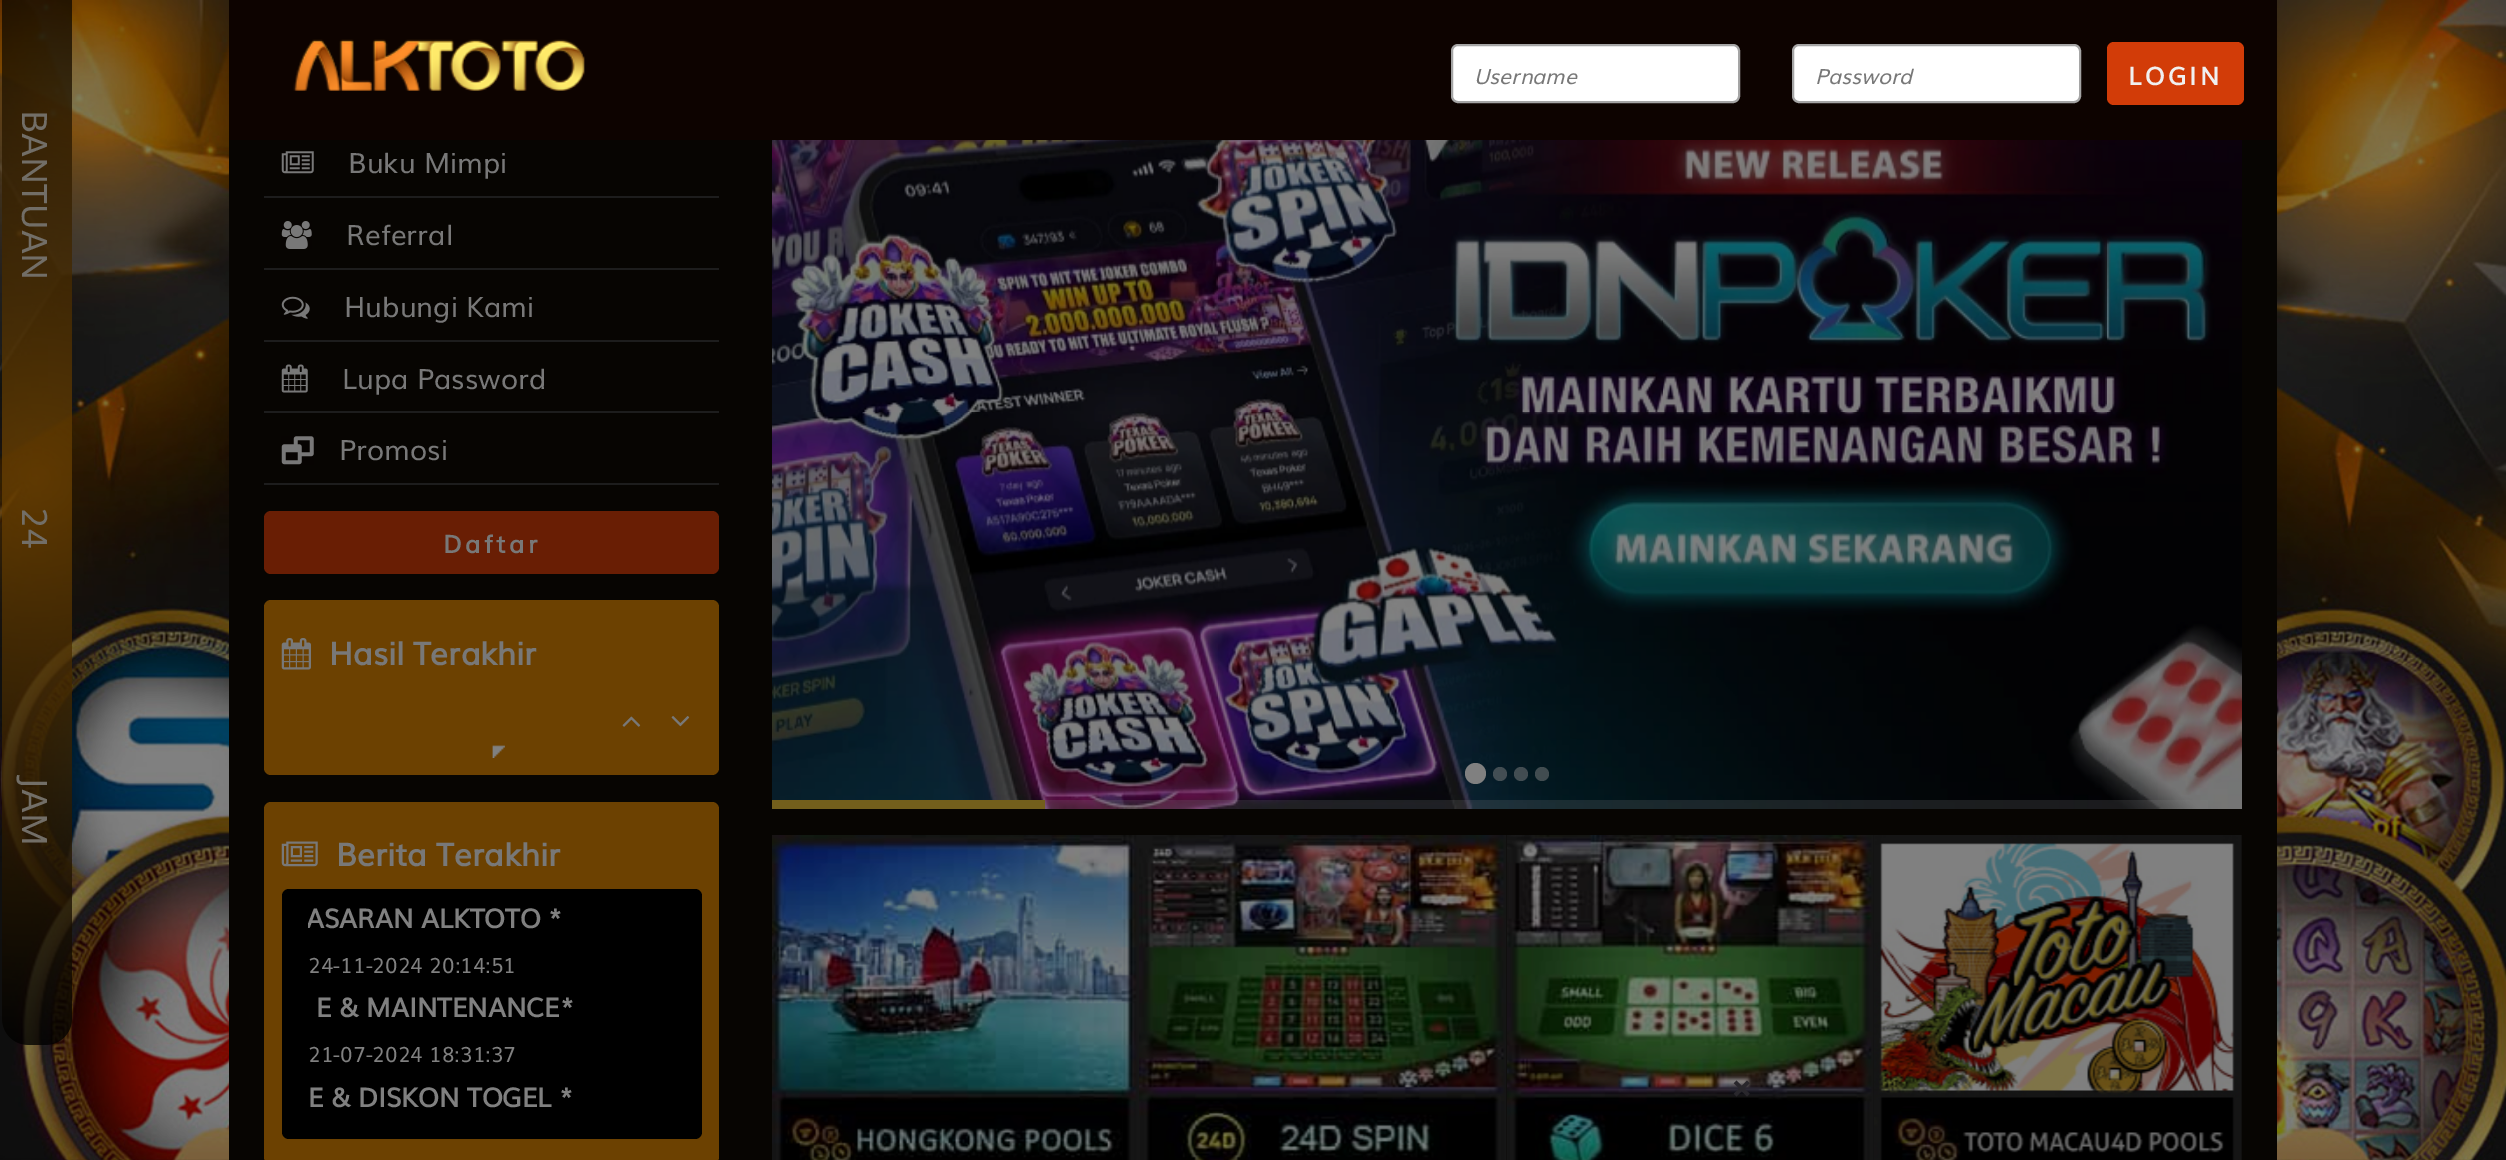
%!PS
<< /PageSize [2506 1160] /PageUsesTransparency true >> setpagedevice
/m/moveto load def
/f/fill load def
/s/stroke load def
/q/gsave load def
/Q_/grestore load def
/w/setlinewidth load def
/C { dup -16 bitshift 255 div exch dup -8 bitshift 255 and 255 div exch 255 and 255 div setrgbcolor } def
/F { [ exch dup neg 0 0 3 -1 roll 0 0 ] selectfont } def
/T { moveto show } def
/R { rectfill } def
/A { dup .setfillconstantalpha .setstrokeconstantalpha } def
/O { newpath 0 360 arc closepath } def
/Q { 5 dict begin { /r /h /w /y /x } { exch def } forall
  x r add y moveto x w add y 2 copy h add r arct x w add y h add x 1 index r arct
  x y h add x y r arct x y 2 copy exch w add exch r arct closepath end } def
/I { 5 dict begin { /h /w /y /x /name } { exch def } forall
  gsave x y translate w h scale
  w h 8 [w 0 0 h 0 0] name (r) file false 3 colorimage grestore end } def
0 .pushpdf14devicefilter
0 1160 translate 1 -1 scale
4 setmiterlimit
16#FFFFFF C
0 0 2506 1160 R
(1.rgb) 0 0 2506 1160 I
16#0D0300 C
229 0 2048 140 R
(2.rgb) 293 39 292 52 I
16#FFFFFF C
1452 45 287 57 6 Q q f Q_
16#A5A5A5 C
2 w
s
/Muli-Italic 21 F
16#787878 C
(Username) 1474 84 T
16#FFFFFF C
1793 45 287 57 6 Q q f Q_
16#A5A5A5 C
s
16#787878 C
(Password) 1815 84 T
16#D23C08 C
2107 42 137 63 7 Q f
/Muli-Bold 24.5 F
16#F0F0F0 C
2128 85 m 3.5 0 (LOGIN) ashow
16#070502 C
229 140 2048 1020 R
/Muli-Regular 35 F
16#726E67 C
q 22 110 translate 90 rotate 0 0 m 216 0 32 (BANTUAN 24 JAM) widthshow Q_
(3.rgb) 772 140 1470 669 I
16#808080 C
1475.5 773.5 10.5 O f
0.5 A
1500 774 7 O f
1521 774 7 O f
1542 774 7 O f
0.2 A
1045 800 1163 9 R
1 A
16#735F1C C
772 800 273 9 R
(4.rgb) 772 835 367 325 I
(5.rgb) 1139 835 368 325 I
(6.rgb) 1507 835 367 325 I
(7.rgb) 1874 835 368 325 I
/Muli-Bold 37 F
16#29272C C
(×) 1730 1099 T
16#1D1D1D C
264 196 455 2 R
(8.rgb) 281 151 33 23 I
/Muli-Regular 28 F
16#787878 C
(Buku Mimpi) 348 173 T
16#1D1D1D C
264 268 455 2 R
(9.rgb) 281 221 31 28 I
16#787878 C
(Referral) 346 245 T
16#1D1D1D C
264 340 455 2 R
(10.rgb) 281 296 29 23 I
16#787878 C
(Hubungi Kami) 344 317 T
16#1D1D1D C
264 411 455 2 R
(11.rgb) 281 364 27 29 I
16#787878 C
(Lupa Password) 342 389 T
16#1D1D1D C
264 483 455 2 R
(12.rgb) 281 436 33 29 I
16#787878 C
(Promosi) 339 460 T
16#691E04 C
264 511 455 63 7 Q f
/Muli-Bold 24.5 F
16#787878 C
443 553 m 3.5 0 (Daftar) ashow
16#6C4101 C
264 600 455 175 7 Q f
(13.rgb) 281 638 30 32 I
/Muli-Bold 31.5 F
16#787878 C
(Hasil Terakhir) 329 665 T
(14.rgb) 622 716 19 11 I
(15.rgb) 671 716 19 11 I
(16.rgb) 492 745 13 13 I
16#6C4101 C
264 802 455 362 7 Q f
(17.rgb) 281 841 37 26 I
16#787878 C
(Berita Terakhir) 336 866 T
16#000000 C
282 889 420 250 7 Q f
q
308 898 368 37 rectclip
/Muli-Bold 26.25 F
16#808080 C
(ASARAN ALKTOTO *) 306 928 T
Q_
/Muli-Regular 21 F
16#808080 C
(24-11-2024 20:14:51) 308 973 T
/Muli-Bold 26.25 F
(E & MAINTENANCE*) 316 1017 T
/Muli-Regular 21 F
(21-07-2024 18:31:37) 308 1062 T
/Muli-Bold 26.25 F
(E & DISKON TOGEL *) 308 1107 T
.poppdf14devicefilter showpage
